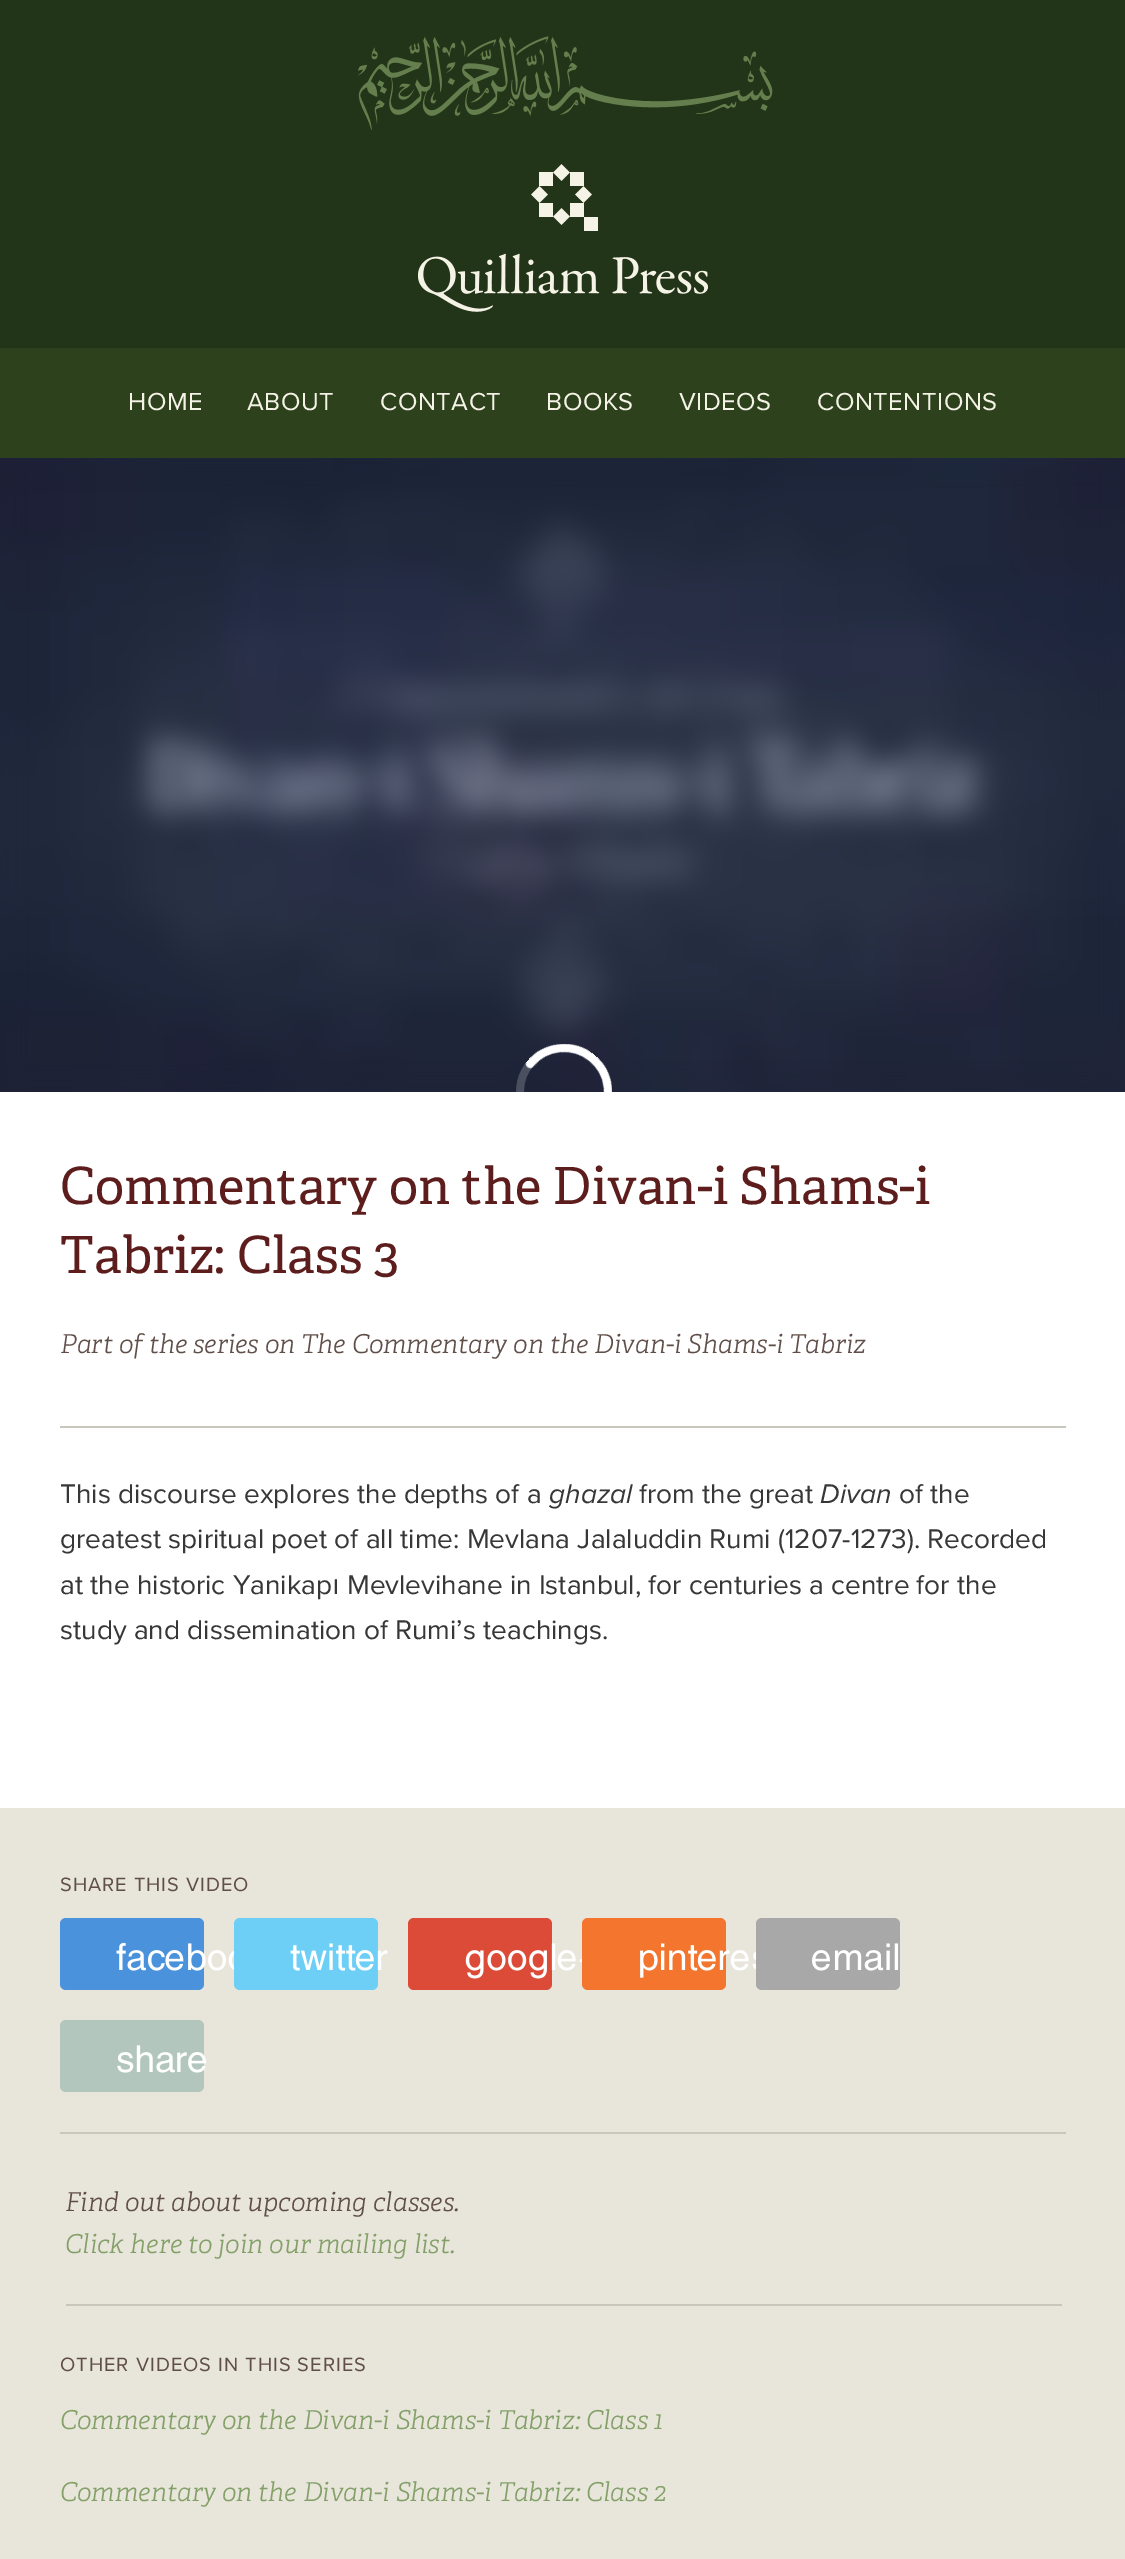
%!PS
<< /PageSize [1125 2559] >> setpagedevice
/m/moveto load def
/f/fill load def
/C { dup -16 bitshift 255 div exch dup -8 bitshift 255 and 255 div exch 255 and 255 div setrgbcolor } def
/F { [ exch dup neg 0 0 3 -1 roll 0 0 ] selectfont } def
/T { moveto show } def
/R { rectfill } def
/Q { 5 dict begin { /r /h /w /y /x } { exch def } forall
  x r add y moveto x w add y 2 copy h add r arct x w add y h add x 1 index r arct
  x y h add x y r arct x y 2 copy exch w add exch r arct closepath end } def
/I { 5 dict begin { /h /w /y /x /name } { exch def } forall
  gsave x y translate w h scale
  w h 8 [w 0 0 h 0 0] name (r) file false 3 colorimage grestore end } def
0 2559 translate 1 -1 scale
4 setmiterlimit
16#FFFFFF C
0 0 1125 2559 R
16#233518 C
0 0 1125 348 R
(1.rgb) 357 36 416 94 I
(2.rgb) 418 164 290 148 I
16#2D411D C
0 348 1125 110 R
/ProximaNova-Regular 25.5 F
16#F5F2E6 C
128 410 m .5 0 (HOME) ashow
247 410 m .5 0 (ABOUT) ashow
380 410 m .5 0 (CONTACT) ashow
546 410 m .5 0 (BOOKS) ashow
679 410 m .5 0 (VIDEOS) ashow
817 410 m .5 0 (CONTENTIONS) ashow
(3.rgb) 0 458 1125 634 I
16#C9C6BE C
60 1426 1006 2 R
/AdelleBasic-Regular 51.25 F
16#5E1D1D C
(Commentary on the Divan-i Shams-i) 60 1204 T
(Tabriz: Class 3) 60 1273 T
/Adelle-LightItalic 26 F
16#604F49 C
(Part of the series on The Commentary on the Divan-i Shams-i Tabriz) 60 1353 T
/ProximaNova-Regular 28 F
16#373737 C
(This discourse explores the depths of a) 60 1503 T
/ProximaNova-Italic 28 F
(ghazal) 549 1503 T
/ProximaNova-Regular 28 F
(from the great) 639 1503 T
/ProximaNova-Italic 28 F
(Divan) 820 1503 T
/ProximaNova-Regular 28 F
(of the) 899 1503 T
(greatest spiritual poet of all time: Mevlana Jalaluddin Rumi \(1207-1273\). Recorded) 60 1548 T
(at the historic Yanikap) 60 1594 T
/LiberationSans-Regular 28 F
(ı) 332 1594 T
/ProximaNova-Regular 28 F
(Mevlevihane in Istanbul, for centuries a centre for the) 347 1594 T
(study and dissemination of Rumi’s teachings.) 60 1639 T
16#E8E5DB C
0 1808 1125 751 R
/ProximaNova-Regular 20 F
16#604F49 C
60 1891 m 1 0 (SHARE THIS VIDEO) ashow
16#C9C6BE C
60 2132 1006 2 R
16#4A92DB C
60 1918 144 72 6 Q f
(4.rgb) 116 1942 118 29 I
16#6DCFF6 C
234 1918 144 72 6 Q f
(5.rgb) 290 1943 98 28 I
16#DC4B38 C
408 1918 144 72 6 Q f
(6.rgb) 465 1943 117 36 I
16#F3752E C
582 1918 144 72 6 Q f
(7.rgb) 640 1943 116 35 I
16#A8A8A8 C
756 1918 144 72 6 Q f
(8.rgb) 812 1943 87 28 I
16#B3C6BE C
60 2020 144 72 6 Q f
(9.rgb) 117 2045 89 28 I
16#C9C6BE C
66 2304 996 2 R
/Adelle-LightItalic 26 F
16#604F49 C
(Find out about upcoming classes.) 65 2211 T
16#83A068 C
(Click here to join our mailing list.) 65 2253 T
/ProximaNova-Regular 20 F
16#604F49 C
60 2371 m 1 0 (OTHER VIDEOS IN THIS SERIES) ashow
/Adelle-LightItalic 26 F
16#83A068 C
(Commentary on the Divan-i Shams-i Tabriz: Class 1) 60 2429 T
(Commentary on the Divan-i Shams-i Tabriz: Class 2) 60 2501 T
showpage
